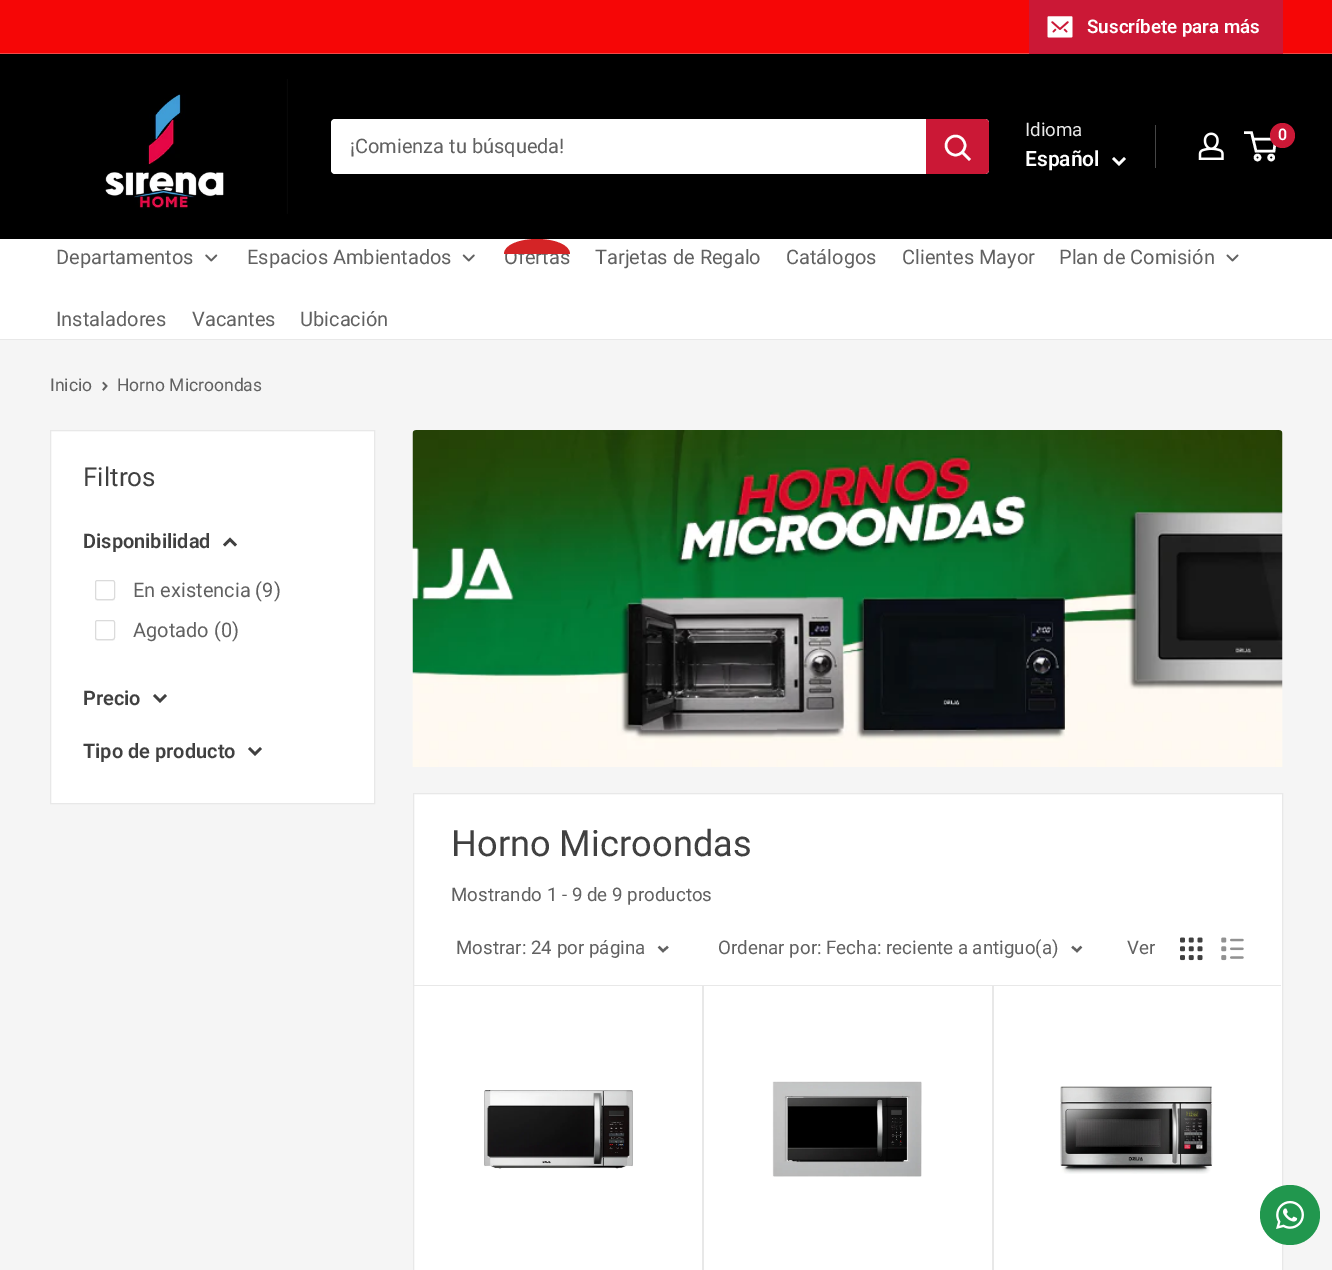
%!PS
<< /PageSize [1332 1270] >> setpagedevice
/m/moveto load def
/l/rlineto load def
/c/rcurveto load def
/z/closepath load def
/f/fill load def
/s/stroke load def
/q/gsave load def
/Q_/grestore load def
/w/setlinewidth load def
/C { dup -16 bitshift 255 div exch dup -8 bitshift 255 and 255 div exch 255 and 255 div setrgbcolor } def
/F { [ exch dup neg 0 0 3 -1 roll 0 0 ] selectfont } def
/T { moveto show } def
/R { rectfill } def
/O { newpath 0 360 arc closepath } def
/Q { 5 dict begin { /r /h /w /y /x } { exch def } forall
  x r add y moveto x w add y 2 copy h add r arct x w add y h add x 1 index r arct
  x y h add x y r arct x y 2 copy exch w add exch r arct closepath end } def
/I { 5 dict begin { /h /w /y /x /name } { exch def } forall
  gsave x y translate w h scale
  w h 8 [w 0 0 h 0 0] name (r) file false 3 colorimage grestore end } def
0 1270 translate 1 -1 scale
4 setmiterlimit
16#F5F5F5 C
0 0 1332 1270 R
16#F60606 C
0 0 1332 53 R
16#F24A4A C
0 53 1332 1 R
16#CB1836 C
1029 52 m 0 2 l 254 0 l 0 -53 l -1 0 l 0 51 l z f
1029 0 254 52 R
(1.rgb) 1047 16 26 22 I
/Roboto-SemiBold 18.75 F
16#FFFFFF C
(Suscríbete para más) 1087 33 T
16#000000 C
0 54 1332 185 R
(2.rgb) 105 79 183 135 I
16#FFFFFF C
331 119 658 55 4 Q f
/Roboto-Regular 20 F
16#616161 C
(¡Comienza tu búsqueda!) 350 153 T
16#CB1836 C
926 119 m 59 0 l 2 0 4 2 4 4 c 0 47 l 0 2 -2 4 -4 4 c -59 0 l z f
16#FFFFFF C
2.5 w
2 setlinecap
969 159 m -6.5 -6.5 l s
0 setlinecap
955.5 145.5 9.5 O s
/Roboto-Regular 18.75 F
16#E8E8E8 C
(Idioma) 1025 136 T
/Roboto-SemiBold 21 F
16#FFFFFF C
(Español) 1025 166 T
2 setlinecap
1124 159 m -5 5 l -5 -5 l s
16#464646 C
1155 125 1 43 R
(3.rgb) 1198 132 26 28 I
16#FFFFFF C
0 setlinecap
1257.5 157.5 2.5 O s
1271.2 157.5 2.5 O s
1253 139 m 22.5 0 l -1.5 12 l -18 0 l -4.5 -18.5 l -7.5 0 l s
16#CB1836 C
1282.5 135.5 12.5 O f
/Roboto-SemiBold 16 F
16#FFFFFF C
(0) 1278 140 T
0 239 1332 100 R
16#E8E8E8 C
0 339 1332 1 R
/Roboto-Regular 20 F
16#616161 C
(Departamentos) 56 264 T
(4.rgb) 205 254 13 8 I
(Espacios Ambientados) 247 264 T
(5.rgb) 462 254 13 8 I
(Ofertas) 504 264 T
16#D42426 C
537 239 m 18 0 33 6 33 15 c -66 0 l 0 -9 15 -15 33 -15 c z f
16#616161 C
(Tarjetas de Regalo) 595 264 T
(Catálogos) 786 264 T
(Clientes Mayor) 902 264 T
(Plan de Comisión) 1059 264 T
(6.rgb) 1226 254 13 8 I
(Instaladores) 56 326 T
(Vacantes) 192 326 T
(Ubicación) 300 326 T
/Roboto-Regular 17.5 F
(Inicio) 50 391 T
1.7 w
2 setlinecap
103.5 383 m 3 3 l -3 3.5 l s
(Horno Microondas) 117 391 T
16#FFFFFF C
50.5 430.5 m 324 0 l 0 373 l -324 0 l z q f Q_
16#E8E8E8 C
1 w
0 setlinecap
s
/Roboto-Regular 26 F
16#404040 C
(Filtros) 83 486 T
/Roboto-SemiBold 20 F
(Disponibilidad) 83 548 T
2.5 w
2 setlinecap
225 544.5 m 5 -5 l 5 5 l s
16#F6F6F6 C
95 597.5 m 0 3.5 1.5 3.5 5 3.5 c 10 0 l 3.5 0 5 0 5 -3.5 c 0 1.5 -1 2.5 -2.5 2.5 c -15 0 l -1.5 0 -2.5 -1 -2.5 -2.5 c z f
16#DBDBDB C
1 w
0 setlinecap
95.5 580.5 19 19 2 Q s
/Roboto-Regular 20 F
16#616161 C
(En existencia \(9\)) 133 597 T
16#F6F6F6 C
95 637.5 m 0 3.5 1.5 3.5 5 3.5 c 10 0 l 3.5 0 5 0 5 -3.5 c 0 1.5 -1 2.5 -2.5 2.5 c -15 0 l -1.5 0 -2.5 -1 -2.5 -2.5 c z f
16#DBDBDB C
95.5 620.5 19 19 2 Q s
16#616161 C
(Agotado \(0\)) 133 637 T
/Roboto-SemiBold 20 F
16#404040 C
(Precio) 83 705 T
2.5 w
2 setlinecap
165 696 m -5 5 l -5 -5 l s
(Tipo de producto) 83 758 T
260 749 m -5 5 l -5 -5 l s
(7.rgb) 412 430 871 337 I
16#FFFFFF C
413.5 793.5 m 869 0 l 0 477 l -869 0 l z q f Q_
16#E8E8E8 C
1 w
0 setlinecap
s
/Roboto-Regular 36.25 F
16#404040 C
(Horno Microondas) 451 856 T
/Roboto-Regular 18.75 F
16#616161 C
(Mostrando 1 - 9 de 9 productos) 451 901 T
16#E8E8E8 C
415 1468 m 289 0 l 0 -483 l -2 0 l 0 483 l z f
704 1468 m 290 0 l 0 -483 l -2 0 l 0 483 l z f
414 985 867 1 R
16#616161 C
(Mostrar: 24 por página) 456 954 T
2.3 w
2 setlinecap
667 947.5 m -4 3.5 l -3.5 -3.5 l s
(Ordenar por: Fecha: reciente a antiguo\(a\)) 718 954 T
1080.5 947.5 m -3.5 3.5 l -4 -3.5 l s
(Ver) 1127 954 T
(8.rgb) 1180 937 23 24 I
(9.rgb) 1221 937 23 24 I
(10.rgb) 484 1090 149 79 I
(11.rgb) 772 1081 150 96 I
(12.rgb) 1060 1086 153 88 I
16#21974E C
1290 1215 30 O f
(13.rgb) 1276 1200 28 29 I
showpage
